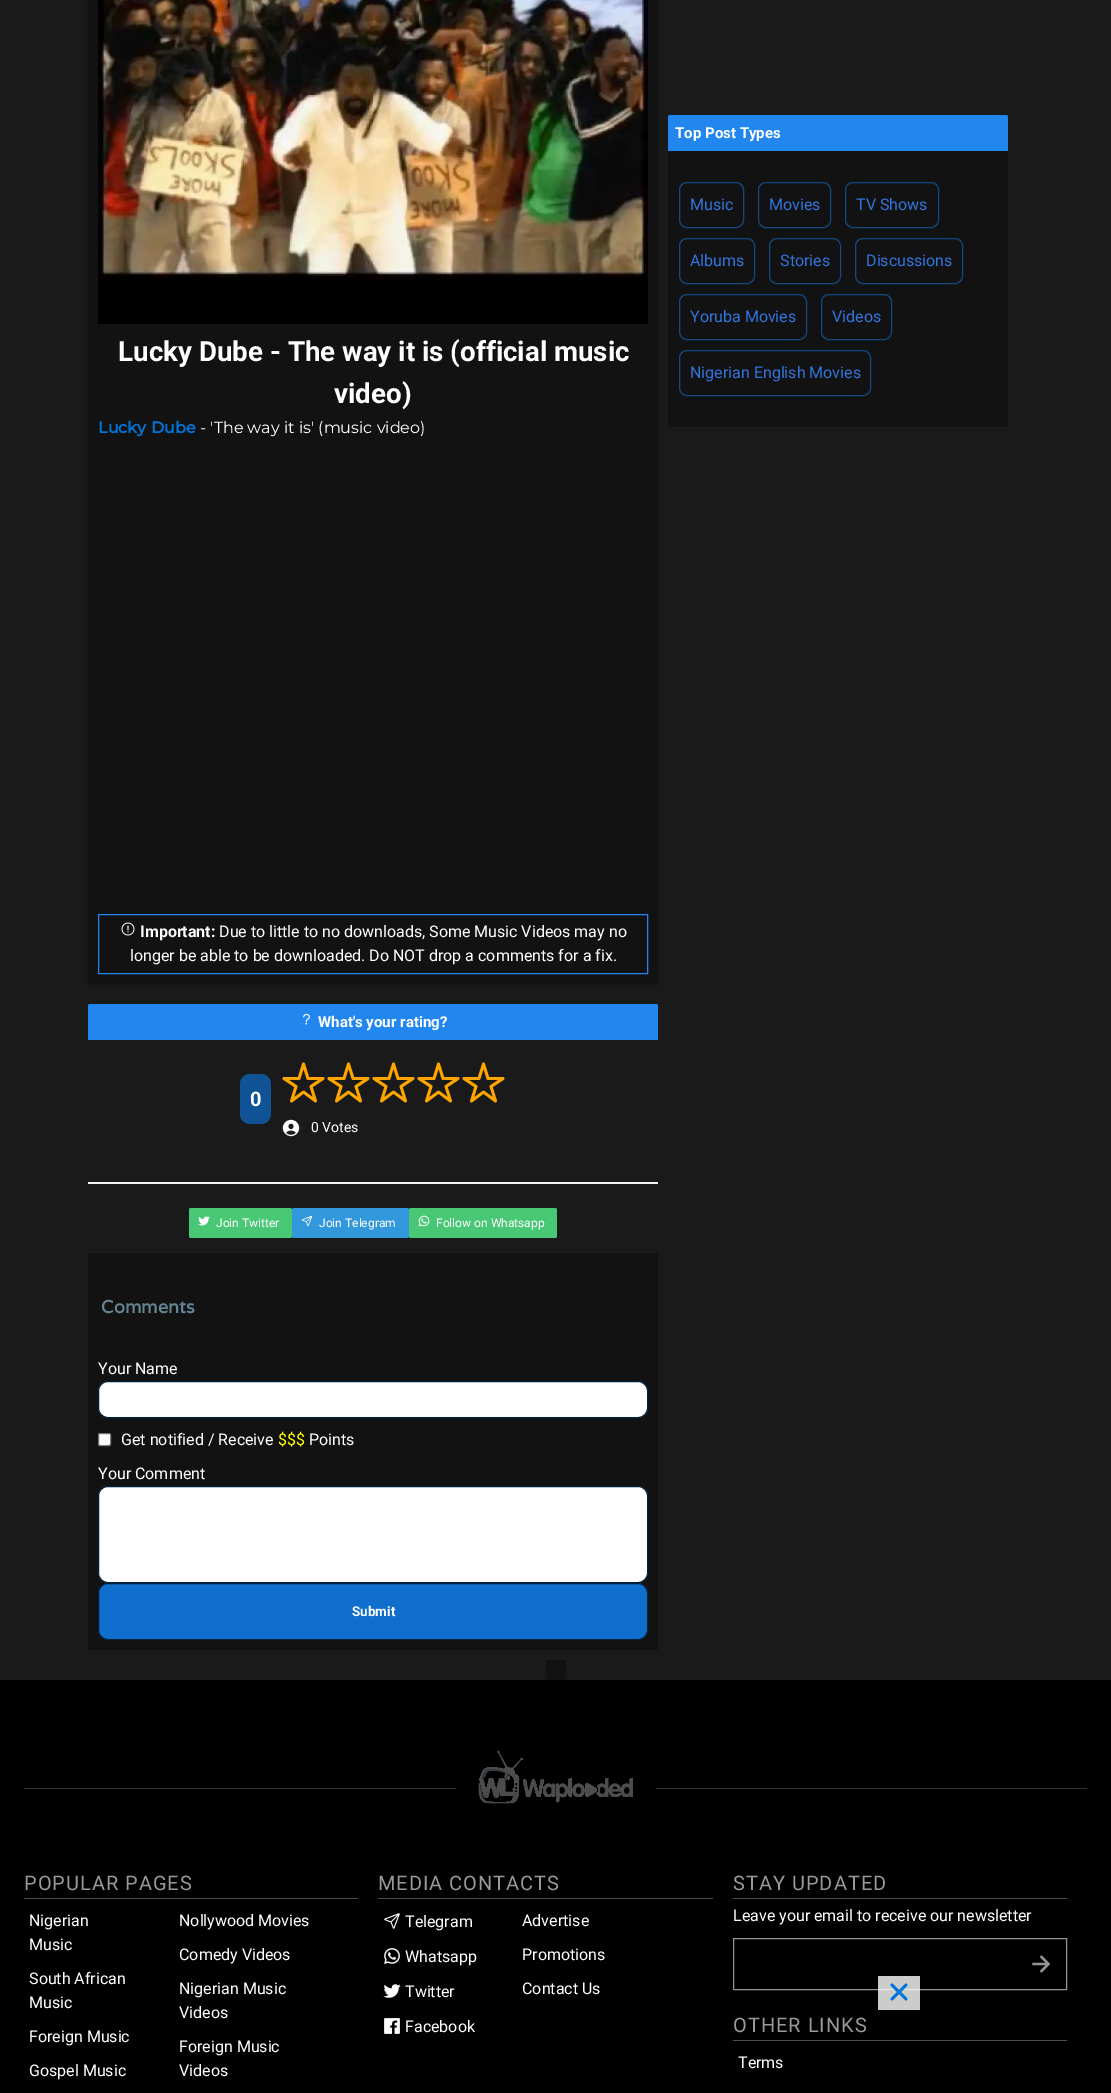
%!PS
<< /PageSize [1111 2093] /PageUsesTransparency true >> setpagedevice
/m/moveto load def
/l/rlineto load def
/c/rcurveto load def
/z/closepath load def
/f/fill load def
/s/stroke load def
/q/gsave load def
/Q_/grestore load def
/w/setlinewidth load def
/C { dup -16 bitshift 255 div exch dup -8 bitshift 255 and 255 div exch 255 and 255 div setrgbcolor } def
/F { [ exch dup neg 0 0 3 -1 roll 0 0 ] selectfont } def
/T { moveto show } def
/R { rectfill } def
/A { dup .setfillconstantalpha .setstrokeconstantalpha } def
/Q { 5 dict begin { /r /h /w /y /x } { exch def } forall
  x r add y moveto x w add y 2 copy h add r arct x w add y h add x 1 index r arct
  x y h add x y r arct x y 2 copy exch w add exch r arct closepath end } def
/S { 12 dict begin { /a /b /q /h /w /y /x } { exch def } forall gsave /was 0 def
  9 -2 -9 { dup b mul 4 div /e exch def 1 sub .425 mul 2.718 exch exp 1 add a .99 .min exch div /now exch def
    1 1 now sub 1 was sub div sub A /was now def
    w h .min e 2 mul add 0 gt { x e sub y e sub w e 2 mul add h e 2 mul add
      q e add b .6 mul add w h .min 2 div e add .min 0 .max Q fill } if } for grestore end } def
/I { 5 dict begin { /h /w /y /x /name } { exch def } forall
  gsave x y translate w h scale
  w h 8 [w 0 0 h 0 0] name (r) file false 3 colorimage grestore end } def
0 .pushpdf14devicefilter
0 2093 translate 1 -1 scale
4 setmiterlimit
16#1A1A1A C
0 0 1111 2093 R
16#000000 C
92 -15 562 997 0 5 .45 S
16#2187EE C
670 115 m 336 0 l 1 0 2 1 2 2 c 0 34 l -340 0 l 0 -34 l 0 -1 1 -2 2 -2 c z f
/Roboto-Bold 15 F
16#FFFFFF C
(Top Post Types) 675 138 T
16#121212 C
668 151 340 276 R
16#114982 C
679.5 182.5 64 45 7.5 Q s
/Roboto-Regular 16 F
16#3273DC C
(Music) 690 210 T
16#114982 C
758.5 182.5 72 45 7.5 Q s
16#3273DC C
(Movies) 769 210 T
16#114982 C
845.5 182.5 93 45 7.5 Q s
16#3273DC C
(TV Shows) 856 210 T
16#114982 C
679.5 238.5 75 45 7.5 Q s
16#3273DC C
(Albums) 690 266 T
16#114982 C
769.5 238.5 71 45 7.5 Q s
16#3273DC C
(Stories) 780 266 T
16#114982 C
855.5 238.5 107 45 7.5 Q s
16#3273DC C
(Discussions) 866 266 T
16#114982 C
679.5 294.5 127 45 7.5 Q s
16#3273DC C
(Yoruba Movies) 690 322 T
16#114982 C
821.5 294.5 70 45 7.5 Q s
16#3273DC C
(Videos) 832 322 T
16#114982 C
679.5 350.5 191 45 7.5 Q s
16#3273DC C
(Nigerian English Movies) 690 378 T
16#121212 C
88 -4 m 570 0 l 0 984 l 0 2 -2 4 -4 4 c -562 0 l -2 0 -4 -2 -4 -4 c z f
(1.rgb) 98 0 550 324 I
/Roboto-Bold 27.75 F
16#FFFFFF C
(Lucky Dube - The way it is \(official music) 118 361 T
(video\)) 334 403 T
/Montserrat-Bold 16 F
16#0074D9 C
(Lucky Dube) 98 433 T
/Montserrat-Regular 16 F
16#FFFFFF C
(- 'The way it is' \(music video\)) 200 433 T
16#2187EE C
98.5 914.5 549 59 rectstroke
(2.rgb) 121 922 14 14 I
/Roboto-Bold 16 F
16#FFFFFF C
(Important:) 140 937 T
/Roboto-Regular 16 F
(Due to little to no downloads, Some Music Videos may no) 219 937 T
(longer be able to be downloaded. Do NOT drop a comments for a fix.) 130 961 T
16#2187EE C
90 1004 m 566 0 l 1 0 2 1 2 2 c 0 34 l -570 0 l 0 -34 l 0 -1 1 -2 2 -2 c z f
(3.rgb) 303 1013 7 12 I
/Roboto-Bold 15 F
16#FFFFFF C
(What's your rating?) 318 1027 T
16#0F5296 C
240 1074 31 50 10 Q f
/Roboto-Bold 20 F
16#FFFFFF C
(0) 250 1106 T
16#FFA500 C
2.8 w
1 setlinejoin
323 1078.5 m -15 0 l -4.5 -14.5 l -4.5 14.5 l -15 0 l 12 8 l -4.5 14.5 l 12 -9 l 12 9 l -4.5 -14.5 l z s
368 1078.5 m -15 0 l -4.5 -14.5 l -4.5 14.5 l -15 0 l 12 8 l -4.5 14.5 l 12 -9 l 12 9 l -4.5 -14.5 l z s
413 1078.5 m -15 0 l -4.5 -14.5 l -4.5 14.5 l -15 0 l 12 8 l -4.5 14.5 l 12 -9 l 12 9 l -4.5 -14.5 l z s
458 1078.5 m -15 0 l -4.5 -14.5 l -4.5 14.5 l -15 0 l 12 8 l -4.5 14.5 l 12 -9 l 12 9 l -4.5 -14.5 l z s
503 1078.5 m -15 0 l -4.5 -14.5 l -4.5 14.5 l -15 0 l 12 8 l -4.5 14.5 l 12 -9 l 12 9 l -4.5 -14.5 l z s
(4.rgb) 282 1119 18 18 I
/Roboto-Regular 14 F
16#FFFFFF C
(0 Votes) 311 1132 T
16#F5F5F5 C
88 1182 570 2 R
16#48C774 C
189 1208 103 30 2 Q f
(5.rgb) 198 1216 12 10 I
/Roboto-Regular 12 F
16#FFFFFF C
(Join Twitter) 216 1227 T
16#3298DC C
292 1208 117 30 2 Q f
(6.rgb) 301 1215 12 12 I
16#FFFFFF C
(Join Telegram) 319 1227 T
16#48C774 C
409 1208 148 30 2 Q f
(7.rgb) 418 1215 12 12 I
16#FFFFFF C
(Follow on Whatsapp) 436 1227 T
16#121212 C
88 1253 570 397 R
/Varela-Bold 18 F
16#648393 C
(Comments) 101 1313 T
/Roboto-Regular 16 F
16#FFFFFF C
(Your Name) 98 1374 T
98.5 1381.5 549 36 9.5 Q q f Q_
16#02223D C
1 w
0 setlinejoin
s
16#FFFFFF C
98.5 1433.5 12 12 1.5 Q q f Q_
16#767676 C
s
16#FFFFFF C
(Get notified / Receive) 121 1445 T
16#FFFF00 C
($$$) 278 1445 T
16#FFFFFF C
(Points) 309 1445 T
(Your Comment) 98 1479 T
98.5 1486.5 549 96 9.5 Q q f Q_
16#02223D C
s
16#106ECC C
98.5 1583.5 549 56 9.5 Q q f Q_
16#02223D C
s
/Roboto-Bold 13.5 F
16#FFFFFF C
(Submit) 352 1616 T
16#121212 C
546 1660 m 20 0 l 0 16 l 0 2 -2 4 -4 4 c -12 0 l -2 0 -4 -2 -4 -4 c z f
16#000000 C
0 1680 1111 413 R
16#919394 C
733.5 1938.5 333 51 rectstroke
0.8 A
16#FFFFFF C
878 1976 42 34 R
1 A
(8.rgb) 890 1983 18 18 I
16#333333 C
24 1788 1063 1 R
16#000000 C
456 1788 200 1 R
(9.rgb) 478 1750 155 54 I
16#4D4D4D C
24 1898 334 1 R
/Roboto-Regular 20 F
16#999999 C
24 1890 m 1 0 (POPULAR PAGES) ashow
/Roboto-Regular 16 F
16#FFFFFF C
(Nigerian) 29 1926 T
(Music) 29 1950 T
(South African) 29 1984 T
(Music) 29 2008 T
(Foreign Music) 29 2042 T
(Gospel Music) 29 2076 T
(Nollywood Movies) 179 1926 T
(Comedy Videos) 179 1960 T
(Nigerian Music) 179 1994 T
(Videos) 179 2018 T
(Foreign Music) 179 2052 T
(Videos) 179 2076 T
16#4D4D4D C
378 1898 335 1 R
/Roboto-Regular 20 F
16#999999 C
378 1890 m 1 0 (MEDIA CONTACTS) ashow
(10.rgb) 384 1913 16 16 I
/Roboto-Regular 16 F
16#FFFFFF C
(Telegram) 405 1927 T
(11.rgb) 384 1948 16 16 I
(Whatsapp) 405 1962 T
(12.rgb) 383 1984 18 14 I
(Twitter) 405 1997 T
(13.rgb) 384 2018 16 16 I
(Facebook) 405 2032 T
(Advertise) 522 1926 T
(Promotions) 522 1960 T
(Contact Us) 522 1994 T
16#4D4D4D C
733 1898 334 1 R
/Roboto-Regular 20 F
16#999999 C
733 1890 m 1 0 (STAY UPDATED) ashow
/Roboto-Regular 16 F
16#FFFFFF C
(Leave your email to receive our newsletter) 733 1921 T
16#919394 C
2.2 w
2 setlinecap
1041.5 1957 m 7 7 l -7 7 l 1047.5 1964 m -14 0 l s
16#4D4D4D C
733 2040 334 1 R
/Roboto-Regular 20 F
16#999999 C
733 2032 m 1 0 (OTHER LINKS) ashow
/Roboto-Regular 16 F
16#FFFFFF C
(Terms) 738 2068 T
.poppdf14devicefilter showpage
